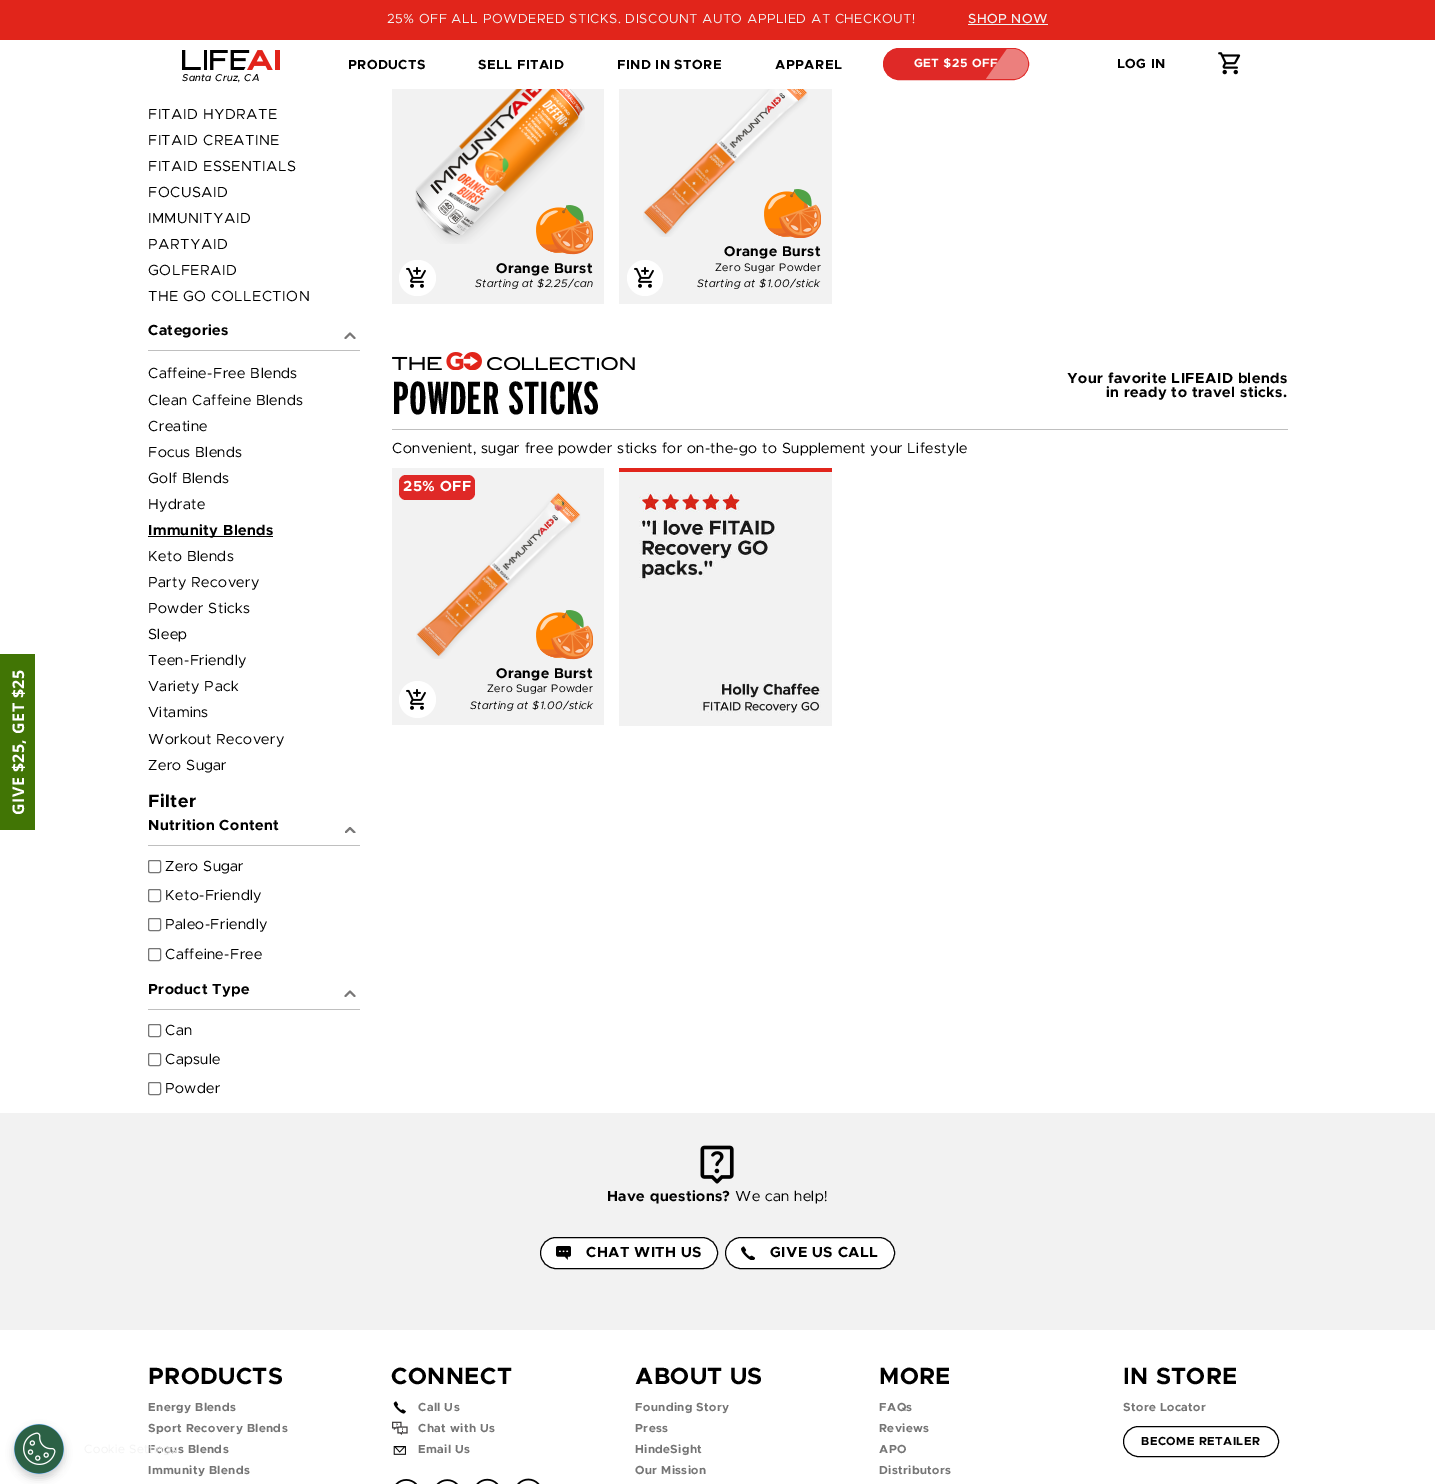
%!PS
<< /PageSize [1435 1484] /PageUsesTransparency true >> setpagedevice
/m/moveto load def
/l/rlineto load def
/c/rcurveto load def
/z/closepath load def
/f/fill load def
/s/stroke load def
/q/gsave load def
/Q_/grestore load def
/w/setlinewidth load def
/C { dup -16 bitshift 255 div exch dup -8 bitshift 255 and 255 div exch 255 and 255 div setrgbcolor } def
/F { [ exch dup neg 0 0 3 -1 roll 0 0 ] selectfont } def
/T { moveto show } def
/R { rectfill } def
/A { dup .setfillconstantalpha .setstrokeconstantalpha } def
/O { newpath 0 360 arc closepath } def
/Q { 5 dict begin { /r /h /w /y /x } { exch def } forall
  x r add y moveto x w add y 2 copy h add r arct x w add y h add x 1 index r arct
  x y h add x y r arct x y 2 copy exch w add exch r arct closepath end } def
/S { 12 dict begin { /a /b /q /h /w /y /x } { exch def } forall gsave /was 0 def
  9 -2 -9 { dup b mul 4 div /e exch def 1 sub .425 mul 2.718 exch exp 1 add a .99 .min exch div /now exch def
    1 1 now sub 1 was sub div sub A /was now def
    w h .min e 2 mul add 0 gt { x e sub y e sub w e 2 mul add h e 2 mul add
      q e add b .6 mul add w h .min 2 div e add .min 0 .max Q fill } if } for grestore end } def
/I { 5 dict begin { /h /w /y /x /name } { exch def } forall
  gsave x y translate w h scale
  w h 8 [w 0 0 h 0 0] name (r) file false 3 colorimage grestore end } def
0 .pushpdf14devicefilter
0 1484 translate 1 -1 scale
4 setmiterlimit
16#FFFFFF C
0 0 1435 1484 R
16#417505 C
0 654 35 176 R
/OpenSans-Bold 16 F
16#FFFFFF C
q 24 815 translate -90 rotate 0 0 m .45 0 (GIVE $25, GET $25) ashow Q_
16#E1251B C
0 0 1435 40 R
/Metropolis-Regular 13.25 F
16#F2F2F2 C
387 23 m .45 0 (25% OFF ALL POWDERED STICKS. DISCOUNT AUTO APPLIED AT CHECKOUT!) ashow
/Metropolis-Medium 13.25 F
968 23 m .45 0 (SHOP NOW) ashow
968 24 80 1 R
/Metropolis-Bold 13.25 F
16#000000 C
348 69 m .45 0 (PRODUCTS) ashow
478 69 m .45 0 (SELL FITAID) ashow
617 69 m .45 0 (FIND IN STORE) ashow
775 69 m .45 0 (APPAREL) ashow
16#DF2927 C
883.5 48.5 145 31 15.5 Q q f Q_
s
/Metropolis-Bold 12 F
16#FFFFFF C
914 67 m .45 0 (GET $25 OFF) ashow
16#EC7F7D C
986 79 m 21 -30 l 6 0 l 8 0 15 7 15 15 c 0 8 -7 15 -15 15 c z f
/Metropolis-Bold 13.25 F
16#000000 C
1117 68 m .45 0 (LOG IN) ashow
(1.rgb) 1218 52 23 23 I
(2.rgb) 182 50 98 20 I
/Metropolis-MediumItalic 10 F
182 81 m .45 0 (Santa Cruz, CA) ashow
/Metropolis-Regular 14.7 F
148 119 m .45 0 (FITAID HYDRATE) ashow
148 145 m .45 0 (FITAID CREATINE) ashow
148 171 m .45 0 (FITAID ESSENTIALS) ashow
148 197 m .45 0 (FOCUSAID) ashow
148 223 m .45 0 (IMMUNITYAID) ashow
148 249 m .45 0 (PARTYAID) ashow
148 275 m .45 0 (GOLFERAID) ashow
148 301 m .45 0 (THE GO COLLECTION) ashow
16#BFBFBF C
148 350 212 1 R
/Metropolis-Bold 14.7 F
16#000000 C
148 335 m .45 0 (Categories) ashow
16#787777 C
2.1 w
1 setlinecap
1 setlinejoin
345.5 338 m 4.5 -4.5 l 4.5 4.5 l s
/Metropolis-Regular 14.7 F
16#000000 C
148 378 m .45 0 (Caffeine-Free Blends) ashow
148 405 m .45 0 (Clean Caffeine Blends) ashow
148 431 m .45 0 (Creatine) ashow
148 457 m .45 0 (Focus Blends) ashow
148 483 m .45 0 (Golf Blends) ashow
148 509 m .45 0 (Hydrate) ashow
148 536 125 1 R
/Metropolis-Bold 14.7 F
148 535 m .45 0 (Immunity Blends) ashow
/Metropolis-Regular 14.7 F
148 561 m .45 0 (Keto Blends) ashow
148 587 m .45 0 (Party Recovery) ashow
148 613 m .45 0 (Powder Sticks) ashow
148 639 m .45 0 (Sleep) ashow
148 665 m .45 0 (Teen-Friendly) ashow
148 691 m .45 0 (Variety Pack) ashow
148 717 m .45 0 (Vitamins) ashow
148 744 m .45 0 (Workout Recovery) ashow
148 770 m .45 0 (Zero Sugar) ashow
/Metropolis-Bold 18 F
148 807 m .45 0 (Filter) ashow
16#BFBFBF C
148 845 212 1 R
/Metropolis-Bold 14.7 F
16#000000 C
148 830 m .45 0 (Nutrition Content) ashow
q
345 827 11 6 rectclip
16#787777 C
345.5 832.5 m 4.5 -4.5 l 4.5 4.5 l s
Q_
16#767676 C
1 w
0 setlinecap
0 setlinejoin
148.5 860.5 12 12 1.5 Q s
/Metropolis-Regular 14.7 F
16#000000 C
165 871 m .45 0 (Zero Sugar) ashow
16#767676 C
148.5 889.5 12 12 1.5 Q s
16#000000 C
165 900 m .45 0 (Keto-Friendly) ashow
16#767676 C
148.5 918.5 12 12 1.5 Q s
16#000000 C
165 929 m .45 0 (Paleo-Friendly) ashow
16#767676 C
148.5 948.5 12 12 1.5 Q s
16#000000 C
165 959 m .45 0 (Caffeine-Free) ashow
16#BFBFBF C
148 1009 212 1 R
/Metropolis-Bold 14.7 F
16#000000 C
148 994 m .45 0 (Product Type) ashow
16#787777 C
2.1 w
1 setlinecap
1 setlinejoin
345.5 996 m 4.5 -4.5 l 4.5 4.5 l s
16#767676 C
1 w
0 setlinecap
0 setlinejoin
148.5 1024.5 12 12 1.5 Q s
/Metropolis-Regular 14.7 F
16#000000 C
165 1035 m .45 0 (Can) ashow
16#767676 C
148.5 1053.5 12 12 1.5 Q s
16#000000 C
165 1064 m .45 0 (Capsule) ashow
16#767676 C
148.5 1082.5 12 12 1.5 Q s
16#000000 C
165 1093 m .45 0 (Powder) ashow
16#F2F2F2 C
392 89 212 215 R
(3.rgb) 415 89 170 155 I
16#FFFFFF C
399 260 37 36 18 Q f
(4.rgb) 406 267 20 21 I
(5.rgb) 536 205 57 50 I
/Metropolis-Bold 14.25 F
16#000000 C
496 273 m .45 0 (Orange Burst) ashow
/Metropolis-Italic 11 F
475 287 m .45 0 (Starting at $2.25/can) ashow
16#F2F2F2 C
619 89 213 215 R
(6.rgb) 643 89 165 148 I
16#FFFFFF C
645 278 18 O f
(4.rgb) 634 267 20 21 I
(7.rgb) 764 189 57 49 I
/Metropolis-Bold 14.25 F
16#000000 C
724 256 m .45 0 (Orange Burst) ashow
/Metropolis-Regular 11 F
715 271 m .45 0 (Zero Sugar Powder) ashow
/Metropolis-Italic 11 F
697 287 m .45 0 (Starting at $1.00/stick) ashow
16#BFBFBF C
392 429 896 1 R
(8.rgb) 392 352 243 18 I
/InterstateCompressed-Bold 46 F
16#000000 C
(POWDER STICKS) 392 414 T
/Metropolis-Bold 14.7 F
1067 383 m .45 0 (Your favorite LIFEAID blends) ashow
1106 397 m .45 0 (in ready to travel sticks.) ashow
/Metropolis-Regular 14.7 F
392 453 m .45 0 (Convenient, sugar free powder sticks for on-the-go to Supplement your Lifestyle) ashow
16#F2F2F2 C
392 468 212 257 R
(9.rgb) 416 493 165 166 I
16#DF2927 C
399 475 76 25 7 Q f
/Metropolis-Bold 14.7 F
16#FFFFFF C
403 491 m .45 0 (25% OFF) ashow
417.5 699.5 18.5 O f
(4.rgb) 406 689 20 21 I
(5.rgb) 536 610 57 50 I
/Metropolis-Bold 14.25 F
16#000000 C
496 678 m .45 0 (Orange Burst) ashow
/Metropolis-Regular 11 F
487 692 m .45 0 (Zero Sugar Powder) ashow
/Metropolis-Italic 11 F
470 709 m .45 0 (Starting at $1.00/stick) ashow
(10.rgb) 619 468 213 258 I
16#F2F2F2 C
0 1113 1435 217 R
(11.rgb) 700 1145 34 39 I
/Metropolis-Bold 14.7 F
16#000000 C
607 1201 m .45 0 (Have questions?) ashow
/Metropolis-Regular 14.7 F
735 1201 m .45 0 (We can help!) ashow
16#FFFFFF C
540.5 1237.5 177 31 15.5 Q q f Q_
16#000000 C
s
(12.rgb) 556 1246 15 14 I
/Metropolis-Bold 14.7 F
586 1257 m .45 0 (CHAT WITH US) ashow
16#FFFFFF C
725.5 1237.5 169 31 15.5 Q q f Q_
16#000000 C
s
(13.rgb) 741 1246 14 14 I
770 1257 m .45 0 (GIVE US CALL) ashow
/Metropolis-Bold 23.5 F
148 1384 m .45 0 (PRODUCTS) ashow
/Metropolis-Bold 11.75 F
16#757575 C
148 1411 m .45 0 (Energy Blends) ashow
148 1432 m .45 0 (Sport Recovery Blends) ashow
148 1453 m .45 0 (Focus Blends) ashow
148 1474 m .45 0 (Immunity Blends) ashow
/Metropolis-Bold 23.5 F
16#000000 C
391 1384 m .45 0 (CONNECT) ashow
(14.rgb) 393 1401 13 13 I
/Metropolis-Bold 11.75 F
16#757575 C
418 1411 m .45 0 (Call Us) ashow
(15.rgb) 392 1421 16 14 I
418 1432 m .45 0 (Chat with Us) ashow
(16.rgb) 393 1446 13 9 I
418 1453 m .45 0 (Email Us) ashow
(17.rgb) 395 1479 22 5 I
(18.rgb) 436 1479 22 5 I
(19.rgb) 476 1478 23 6 I
(20.rgb) 517 1478 23 6 I
/Metropolis-Bold 23.5 F
16#000000 C
635 1384 m .45 0 (ABOUT US) ashow
/Metropolis-Bold 11.75 F
16#757575 C
635 1411 m .45 0 (Founding Story) ashow
635 1432 m .45 0 (Press) ashow
635 1453 m .45 0 (HindeSight) ashow
635 1474 m .45 0 (Our Mission) ashow
/Metropolis-Bold 23.5 F
16#000000 C
879 1384 m .45 0 (MORE) ashow
/Metropolis-Bold 11.75 F
16#757575 C
879 1411 m .45 0 (FAQs) ashow
879 1432 m .45 0 (Reviews) ashow
879 1453 m .45 0 (APO) ashow
879 1474 m .45 0 (Distributors) ashow
/Metropolis-Bold 23.5 F
16#000000 C
1123 1384 m .45 0 (IN STORE) ashow
/Metropolis-Bold 11.75 F
16#757575 C
1123 1411 m .45 0 (Store Locator) ashow
16#000000 C
1123.5 1426.5 155 30 15 Q s
1141 1445 m .45 0 (BECOME RETAILER) ashow
14 1428 50 50 25 4 .2 S
16#6AAAE4 C
39 1449 25 O f
(21.rgb) 14 1424 50 50 I
/Metropolis-Regular 12 F
16#F2F2F2 C
84 1453 m .45 0 (Cookie Settings) ashow
.poppdf14devicefilter showpage
